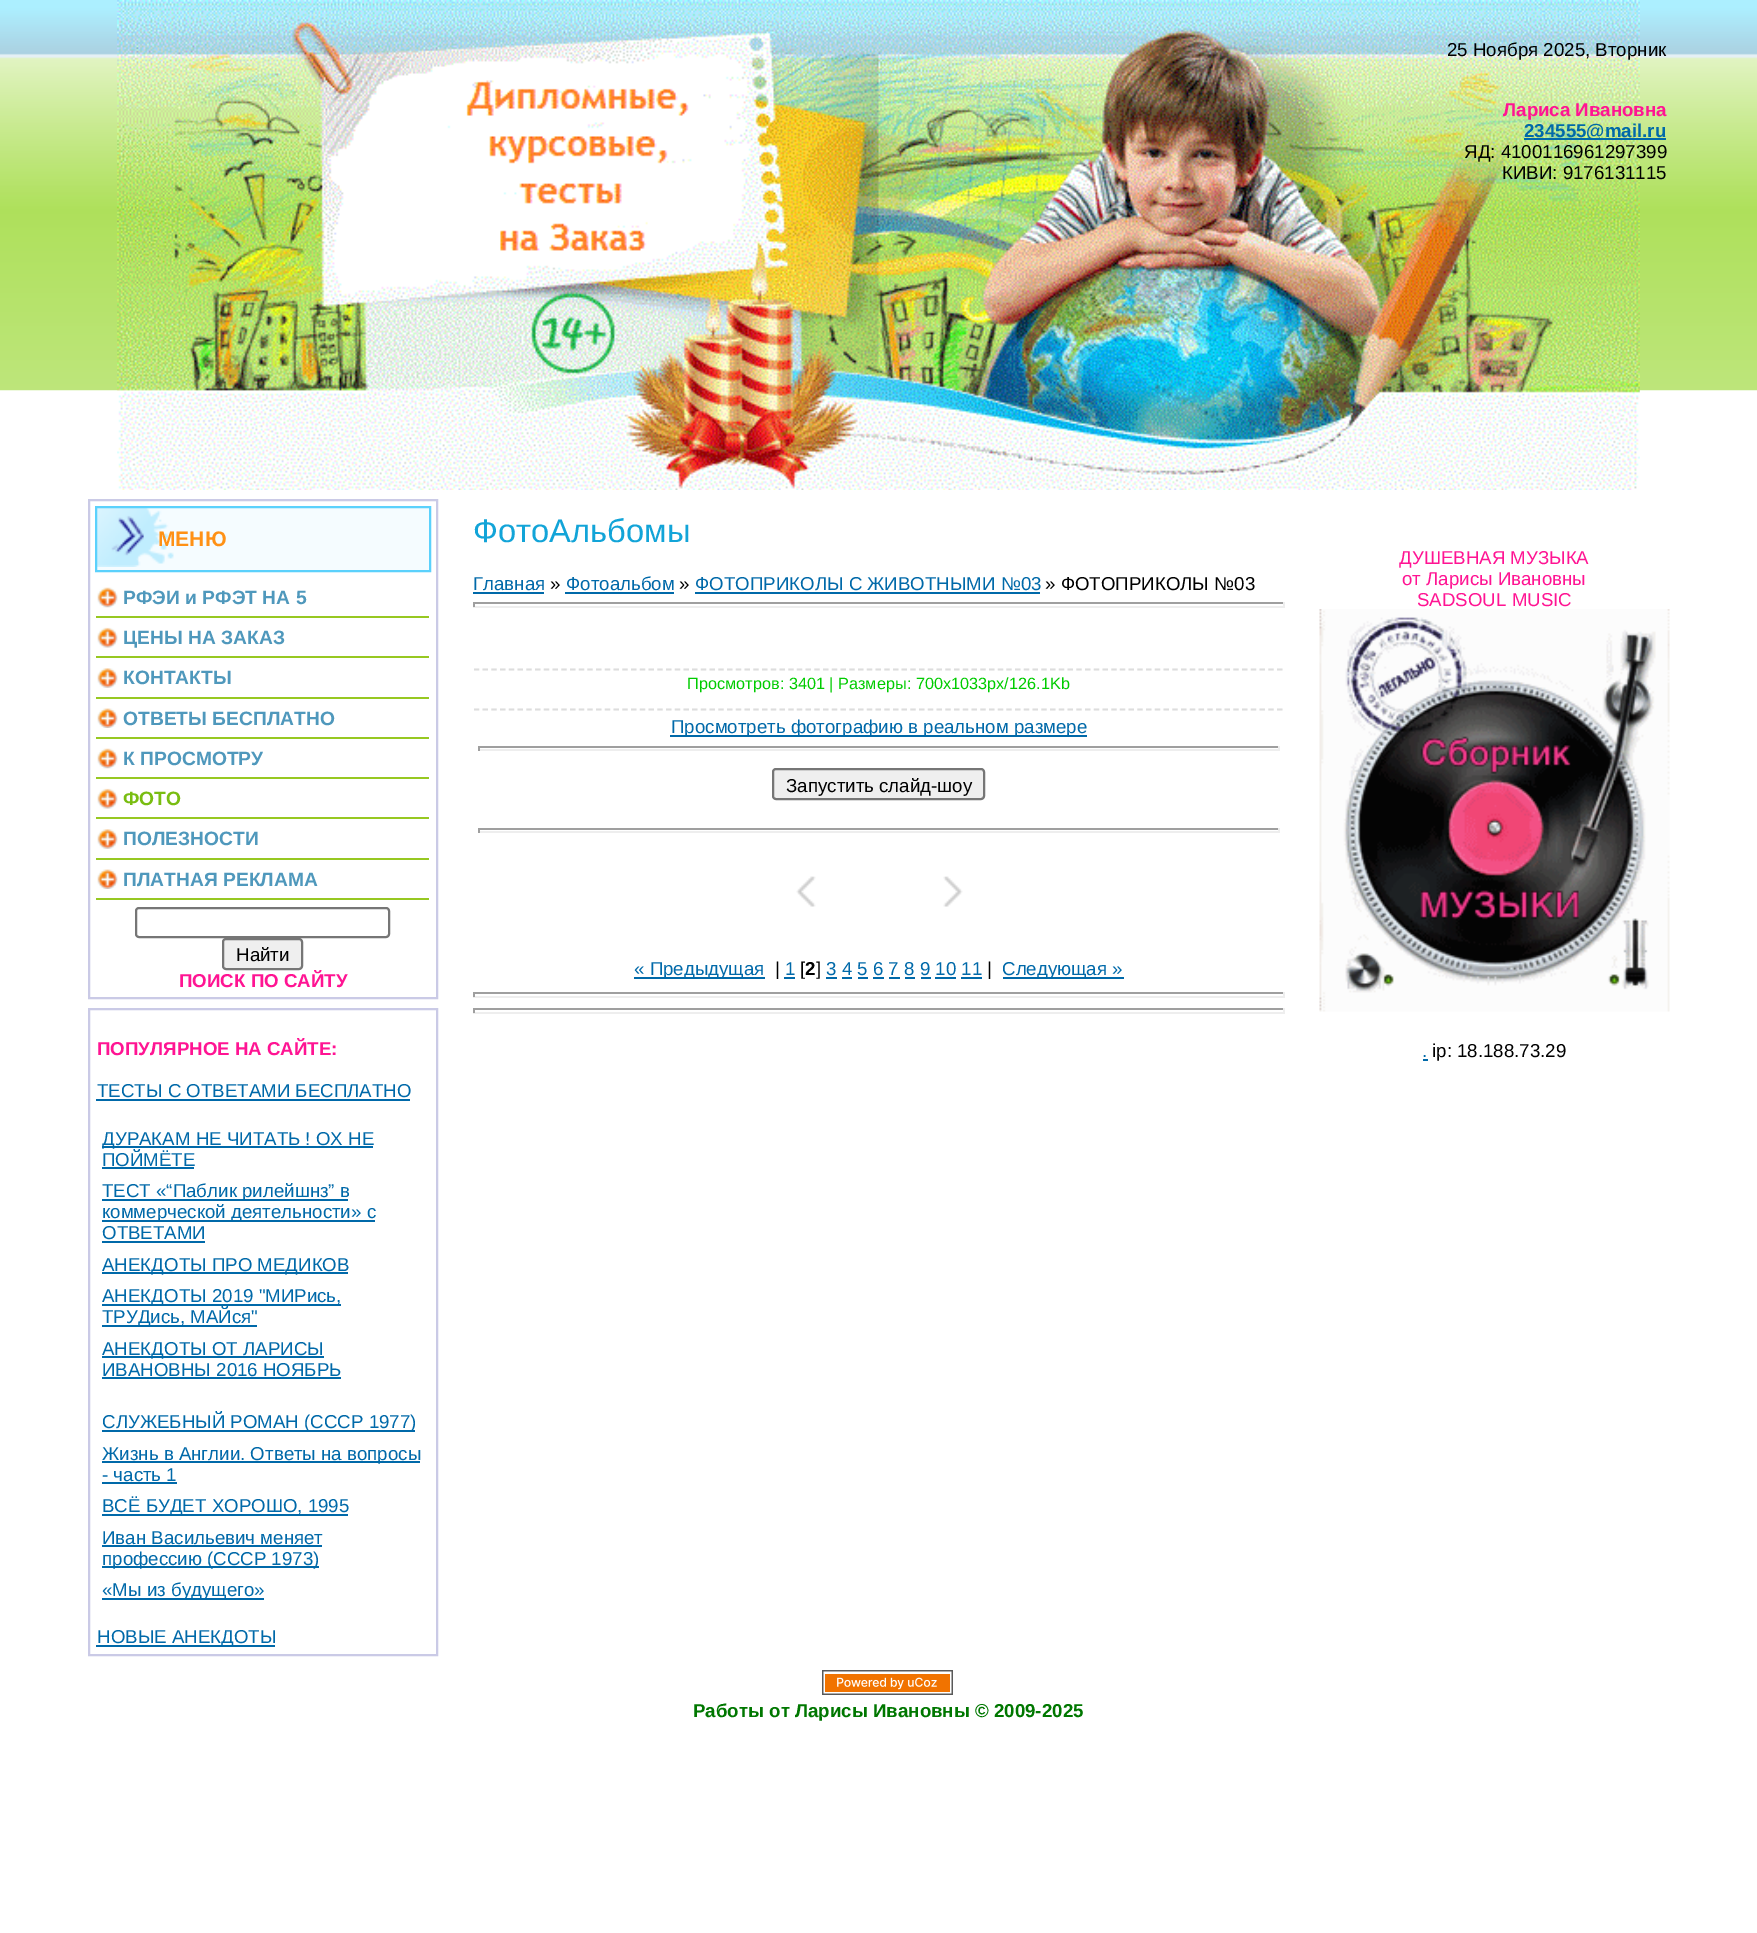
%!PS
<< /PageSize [1757 1933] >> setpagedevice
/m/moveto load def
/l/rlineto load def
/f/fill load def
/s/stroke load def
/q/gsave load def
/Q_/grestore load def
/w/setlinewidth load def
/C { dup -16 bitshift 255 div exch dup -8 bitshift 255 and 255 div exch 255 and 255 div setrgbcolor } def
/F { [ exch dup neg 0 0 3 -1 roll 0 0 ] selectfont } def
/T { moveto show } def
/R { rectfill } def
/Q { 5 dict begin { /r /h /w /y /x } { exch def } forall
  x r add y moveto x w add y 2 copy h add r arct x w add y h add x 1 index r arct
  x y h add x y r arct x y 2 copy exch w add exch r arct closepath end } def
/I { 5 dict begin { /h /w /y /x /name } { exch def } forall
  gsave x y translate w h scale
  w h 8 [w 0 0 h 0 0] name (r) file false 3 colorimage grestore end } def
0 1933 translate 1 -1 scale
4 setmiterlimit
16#FFFFFF C
0 0 1757 1933 R
(1.rgb) 0 0 1757 391 I
(2.rgb) 117 0 1523 490 I
/LiberationSans-Regular 18.7 F
16#000000 C
(25 Ноября 2025, Вторник) 1447 56 T
/LiberationSans-Bold 18.7 F
16#FF1493 C
(Лариса Ивановна) 1503 116 T
16#0069A9 C
1524 138 142 2 R
(234555@mail.ru) 1524 137 T
/LiberationSans-Regular 18.7 F
16#000000 C
(ЯД: 4100116961297399) 1464 158 T
(КИВИ: 9176131115) 1502 179 T
16#CACAE6 C
2 w
89 500 348 498 rectstroke
16#F5FCFF C
97 508 332 62 R
(3.rgb) 97 508 77 59 I
16#5BD1FC C
96 507 334 64 rectstroke
/LiberationSans-Bold 21 F
16#FF9115 C
(МЕНЮ) 158 546 T
(4.rgb) 97 587 21 21 I
16#97C821 C
96 616 333 2 R
/LiberationSans-Bold 19.25 F
16#4F98BC C
(РФЭИ и РФЭТ НА 5) 123 604 T
(5.rgb) 97 627 21 21 I
16#97C821 C
96 656 333 2 R
16#4F98BC C
(ЦЕНЫ НА ЗАКАЗ) 123 644 T
(6.rgb) 97 668 21 20 I
16#97C821 C
96 697 333 2 R
16#4F98BC C
(КОНТАКТЫ) 123 684 T
(7.rgb) 97 708 21 20 I
16#97C821 C
96 737 333 2 R
16#4F98BC C
(ОТВЕТЫ БЕСПЛАТНО) 123 725 T
(4.rgb) 97 748 21 21 I
16#97C821 C
96 777 333 2 R
16#4F98BC C
(К ПРОСМОТРУ) 123 765 T
(5.rgb) 97 788 21 21 I
16#97C821 C
96 817 333 2 R
16#79BD11 C
(ФОТО) 123 805 T
(6.rgb) 97 829 21 20 I
16#97C821 C
96 858 333 2 R
16#4F98BC C
(ПОЛЕЗНОСТИ) 123 845 T
(7.rgb) 97 869 21 20 I
16#97C821 C
96 898 333 2 R
16#4F98BC C
(ПЛАТНАЯ РЕКЛАМА) 123 886 T
16#767676 C
136 908 253 29 3 Q s
16#EFEFEF C
223 939 79 30 3 Q q f Q_
16#767676 C
s
/LiberationSans-Regular 18.7 F
16#000000 C
(Найти) 236 961 T
/LiberationSans-Bold 18.7 F
16#FF1493 C
(ПОИСК ПО САЙТУ) 179 987 T
16#CACAE6 C
89 1009 348 646 rectstroke
16#FF1493 C
(ПОПУЛЯРНОЕ НА САЙТЕ:) 97 1055 T
/LiberationSans-Regular 18.7 F
16#0069A9 C
(ТЕСТЫ С ОТВЕТАМИ БЕСПЛАТНО) 97 1097 T
96 1099 314 2 R
102 1146 271 2 R
(ДУРАКАМ НЕ ЧИТАТЬ ! ОХ НЕ) 102 1145 T
(ПОЙМЁТЕ) 102 1166 T
102 1167 92 2 R
102 1199 246 2 R
(ТЕСТ «“Паблик рилейшнз” в) 102 1197 T
102 1220 273 2 R
(коммерческой деятельности» с) 102 1218 T
(ОТВЕТАМИ) 102 1239 T
102 1241 103 2 R
102 1272 246 2 R
(АНЕКДОТЫ ПРО МЕДИКОВ) 102 1271 T
102 1304 239 2 R
(АНЕКДОТЫ 2019 "МИРись,) 102 1302 T
102 1325 155 2 R
(ТРУДись, МАЙся") 102 1323 T
102 1356 222 2 R
(АНЕКДОТЫ ОТ ЛАРИСЫ) 102 1355 T
(ИВАНОВНЫ 2016 НОЯБРЬ) 102 1376 T
102 1377 239 2 R
102 1430 313 2 R
(СЛУЖЕБНЫЙ РОМАН \(СССР 1977\)) 102 1428 T
102 1461 318 2 R
(Жизнь в Англии. Ответы на вопросы) 102 1460 T
(- часть 1) 102 1481 T
102 1482 75 2 R
102 1514 246 2 R
(ВСЁ БУДЕТ ХОРОШО, 1995) 102 1512 T
(Иван Васильевич меняет) 102 1544 T
102 1545 220 2 R
102 1566 217 2 R
(профессию \(СССР 1973\)) 102 1565 T
102 1598 162 2 R
(«Мы из будущего») 102 1596 T
96 1645 179 2 R
(НОВЫЕ АНЕКДОТЫ) 97 1643 T
/LiberationSans-Regular 32.75 F
16#12A4D8 C
(ФотоАльбомы) 473 542 T
/LiberationSans-Regular 18.7 F
16#0069A9 C
(Главная) 473 590 T
473 592 71 2 R
16#000000 C
(») 550 590 T
16#0069A9 C
(Фотоальбом) 566 590 T
565 592 109 2 R
16#000000 C
(») 679 590 T
16#0069A9 C
(ФОТОПРИКОЛЫ С ЖИВОТНЫМИ №03) 695 590 T
695 592 345 2 R
16#000000 C
(» ФОТОПРИКОЛЫ №03) 1045 590 T
16#9F9F9F C
473 602 812 2 R
16#EEEEEE C
1283 602 2 5 R
473 606 812 2 R
16#9F9F9F C
473 602 2 5 R
16#DDDDDD C
1.8 w
[5.25 3.48] 0 setdash
474 669.5 m 809 0 l s
474 709.5 m 809 0 l s
/LiberationSans-Regular 16.3 F
16#00CC00 C
(Просмотров: 3401 | Размеры: 700x1033px/126.1Kb) 687 689 T
16#0069A9 C
670 735 417 2 R
/LiberationSans-Regular 18.7 F
(Просмотреть фотографию в реальном размере) 671 733 T
16#9F9F9F C
478 746 801 2 R
16#EEEEEE C
1278 746 2 5 R
478 749 801 2 R
16#9F9F9F C
478 746 2 5 R
16#EFEFEF C
773 769 211 30 3 Q q f Q_
16#767676 C
2 w
[] 0 setdash
s
16#000000 C
(Запустить слайд-шоу) 786 792 T
16#9F9F9F C
478 828 801 2 R
16#EEEEEE C
1278 828 2 5 R
478 831 801 2 R
16#9F9F9F C
478 828 2 5 R
(8.rgb) 796 876 20 31 I
(9.rgb) 943 876 20 31 I
16#0069A9 C
634 977 131 2 R
(« Предыдущая) 634 975 T
16#000000 C
(|) 775 975 T
16#0069A9 C
(1) 785 975 T
784 977 11 2 R
16#000000 C
([) 800 975 T
/LiberationSans-Bold 18.7 F
(2) 805 975 T
/LiberationSans-Regular 18.7 F
(]) 816 975 T
16#0069A9 C
(3 4 5 6 7 8 9 10 11) 826 975 T
826 977 11 2 R
16#000000 C
(|) 987 975 T
16#0069A9 C
1003 977 121 2 R
(Следующая ») 1002 975 T
842 977 10 2 R
858 977 10 2 R
873 977 11 2 R
889 977 11 2 R
905 977 10 2 R
921 977 10 2 R
935 977 21 2 R
961 977 21 2 R
16#9F9F9F C
473 992 812 2 R
16#EEEEEE C
1283 992 2 5 R
473 996 812 2 R
16#9F9F9F C
473 992 2 5 R
473 1008 812 2 R
16#EEEEEE C
1283 1008 2 5 R
473 1012 812 2 R
16#9F9F9F C
473 1008 2 5 R
16#FF1493 C
(ДУШЕВНАЯ МУЗЫКА) 1399 564 T
(от Ларисы Ивановны) 1402 585 T
(SADSOUL MUSIC) 1417 606 T
(10.rgb) 1319 609 351 403 I
16#0069A9 C
(.) 1422 1057 T
1423 1059 5 2 R
16#000000 C
(ip: 18.188.73.29) 1432 1057 T
(11.rgb) 822 1670 131 25 I
/LiberationSans-Bold 18.7 F
16#007700 C
(Работы от Ларисы Ивановны © 2009-2025) 693 1717 T
showpage
